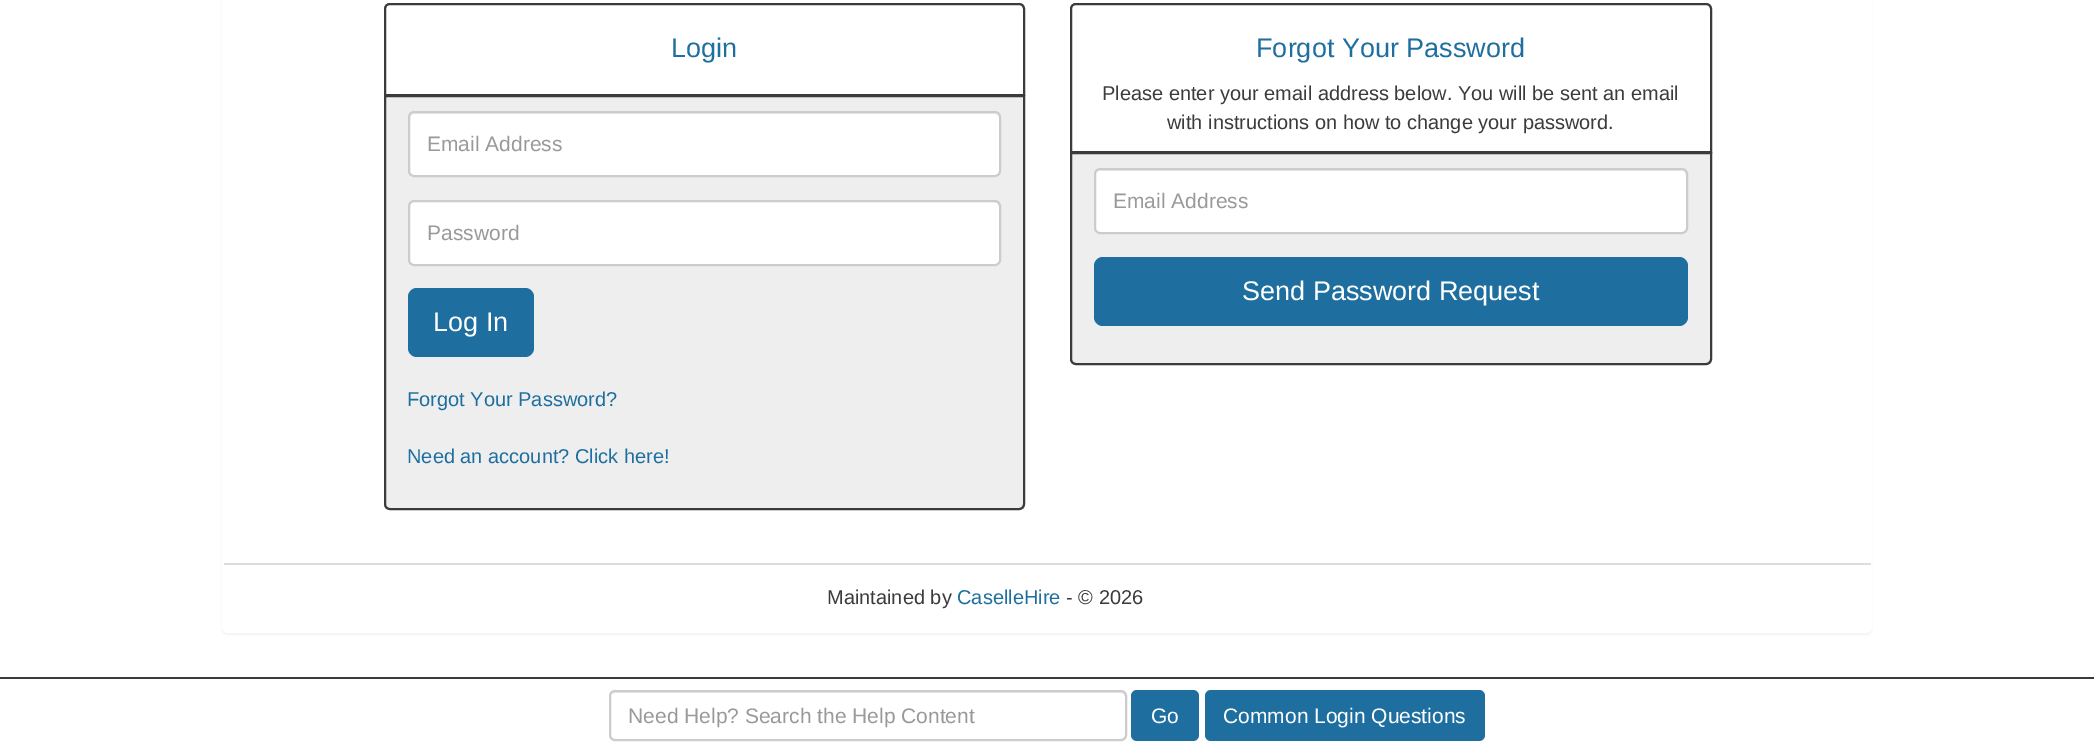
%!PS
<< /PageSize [2094 753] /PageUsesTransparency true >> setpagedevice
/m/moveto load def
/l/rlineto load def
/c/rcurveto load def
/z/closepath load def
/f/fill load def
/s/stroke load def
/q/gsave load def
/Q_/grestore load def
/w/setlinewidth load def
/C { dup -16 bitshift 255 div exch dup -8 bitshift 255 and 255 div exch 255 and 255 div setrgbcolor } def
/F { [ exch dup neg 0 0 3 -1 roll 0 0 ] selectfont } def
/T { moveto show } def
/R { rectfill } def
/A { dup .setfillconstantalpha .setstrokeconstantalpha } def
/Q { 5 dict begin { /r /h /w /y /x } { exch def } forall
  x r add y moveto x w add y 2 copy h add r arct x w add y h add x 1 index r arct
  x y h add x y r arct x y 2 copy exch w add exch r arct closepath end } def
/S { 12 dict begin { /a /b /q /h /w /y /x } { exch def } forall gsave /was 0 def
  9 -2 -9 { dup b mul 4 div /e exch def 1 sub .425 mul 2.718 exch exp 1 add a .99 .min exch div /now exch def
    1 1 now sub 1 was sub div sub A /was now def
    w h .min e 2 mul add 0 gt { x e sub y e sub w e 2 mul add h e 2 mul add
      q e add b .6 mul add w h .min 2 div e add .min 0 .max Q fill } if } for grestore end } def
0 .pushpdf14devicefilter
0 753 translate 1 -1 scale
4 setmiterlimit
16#FFFFFF C
0 0 2094 753 R
16#000000 C
222 -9 1650 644 6 1 .05 S
16#FFFFFF C
223 -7 1648 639 5 Q q f Q_
2 w
s
16#3B3B3B C
390 4 m 629 0 l 3 0 5 2 5 5 c 0 86 l -639 0 l 0 -86 l 0 -3 2 -5 5 -5 c z s
/LiberationSans-Regular 27 F
16#1E6F9F C
(Login) 671 57 T
16#EEEEEE C
385 96 m 639 0 l 0 408 l 0 3 -2 5 -5 5 c -629 0 l -3 0 -5 -2 -5 -5 c z q f Q_
16#3B3B3B C
s
16#FFFFFF C
408 111 593 66 6 Q f
16#ECECEC C
414 114 m 580 0 l 3 0 5 2 5 4 c 0 -3 -2 -5 -5 -5 c -579 0 l -3 0 -5 2 -5 5 c 0 -2 2 -4 4 -4 c z f
16#CCCCCC C
409 112 591 64 5 Q s
/LiberationSans-Regular 21 F
16#999999 C
(Email Address) 427 151 T
16#FFFFFF C
408 200 593 66 6 Q f
16#ECECEC C
414 202 m 580 0 l 3 0 5 3 5 5 c 0 -1 l 0 -3 -2 -5 -5 -5 c -579 0 l -3 0 -5 2 -5 5 c 0 1 l 0 -2 2 -5 4 -5 c z f
16#CCCCCC C
409 201 591 64 5 Q s
16#999999 C
(Password) 427 240 T
16#1E6F9F C
408 288 126 69 9 Q f
/LiberationSans-Regular 27 F
16#FFFFFF C
(Log In) 433 331 T
/LiberationSans-Regular 20 F
16#1E6F9F C
(Forgot Your Password?) 407 406 T
(Need an account? Click here!) 407 463 T
16#3B3B3B C
1076 4 m 630 0 l 3 0 5 2 5 5 c 0 143 l -640 0 l 0 -143 l 0 -3 2 -5 5 -5 c z s
/LiberationSans-Regular 27 F
16#1E6F9F C
(Forgot Your Password) 1256 57 T
/LiberationSans-Regular 20 F
16#3B3B3B C
(Please enter your email address below. You will be sent an email) 1102 100 T
(with instructions on how to change your password.) 1167 129 T
16#EEEEEE C
1071 153 m 640 0 l 0 206 l 0 3 -2 5 -5 5 c -630 0 l -3 0 -5 -2 -5 -5 c z q f Q_
16#3B3B3B C
s
16#FFFFFF C
1094 168 594 66 6 Q f
16#ECECEC C
1100 171 m 582 0 l 2 0 4 2 4 5 c 0 -1 l 0 -3 -2 -5 -5 -5 c -581 0 l -3 0 -5 2 -5 5 c 0 1 l 0 -3 2 -5 5 -5 c z f
16#CCCCCC C
1095 169 592 64 5 Q s
/LiberationSans-Regular 21 F
16#999999 C
(Email Address) 1113 208 T
16#1E6F9F C
1094 257 594 69 9 Q f
/LiberationSans-Regular 27 F
16#FFFFFF C
(Send Password Request) 1242 300 T
16#DDDDDD C
224 563 1647 2 R
/LiberationSans-Regular 20 F
16#3B3B3B C
(Maintained by) 827 604 T
16#1E6F9F C
(CaselleHire) 957 604 T
16#3B3B3B C
(- © 2026) 1066 604 T
0 677 2094 2 R
16#ECECEC C
615 693 m 505 0 l 3 0 5 2 5 5 c 0 -1 l 0 -3 -2 -5 -5 -5 c -504 0 l -2 0 -3 1 -4 2 c z f
16#CCCCCC C
610 691 516 49 5 Q s
/LiberationSans-Regular 21 F
16#999999 C
(Need Help? Search the Help Content) 628 723 T
16#1E6F9F C
1131 690 68 51 6 Q f
16#FFFFFF C
(Go) 1151 723 T
16#1E6F9F C
1205 690 280 51 6 Q f
16#FFFFFF C
(Common Login Questions) 1223 723 T
.poppdf14devicefilter showpage
